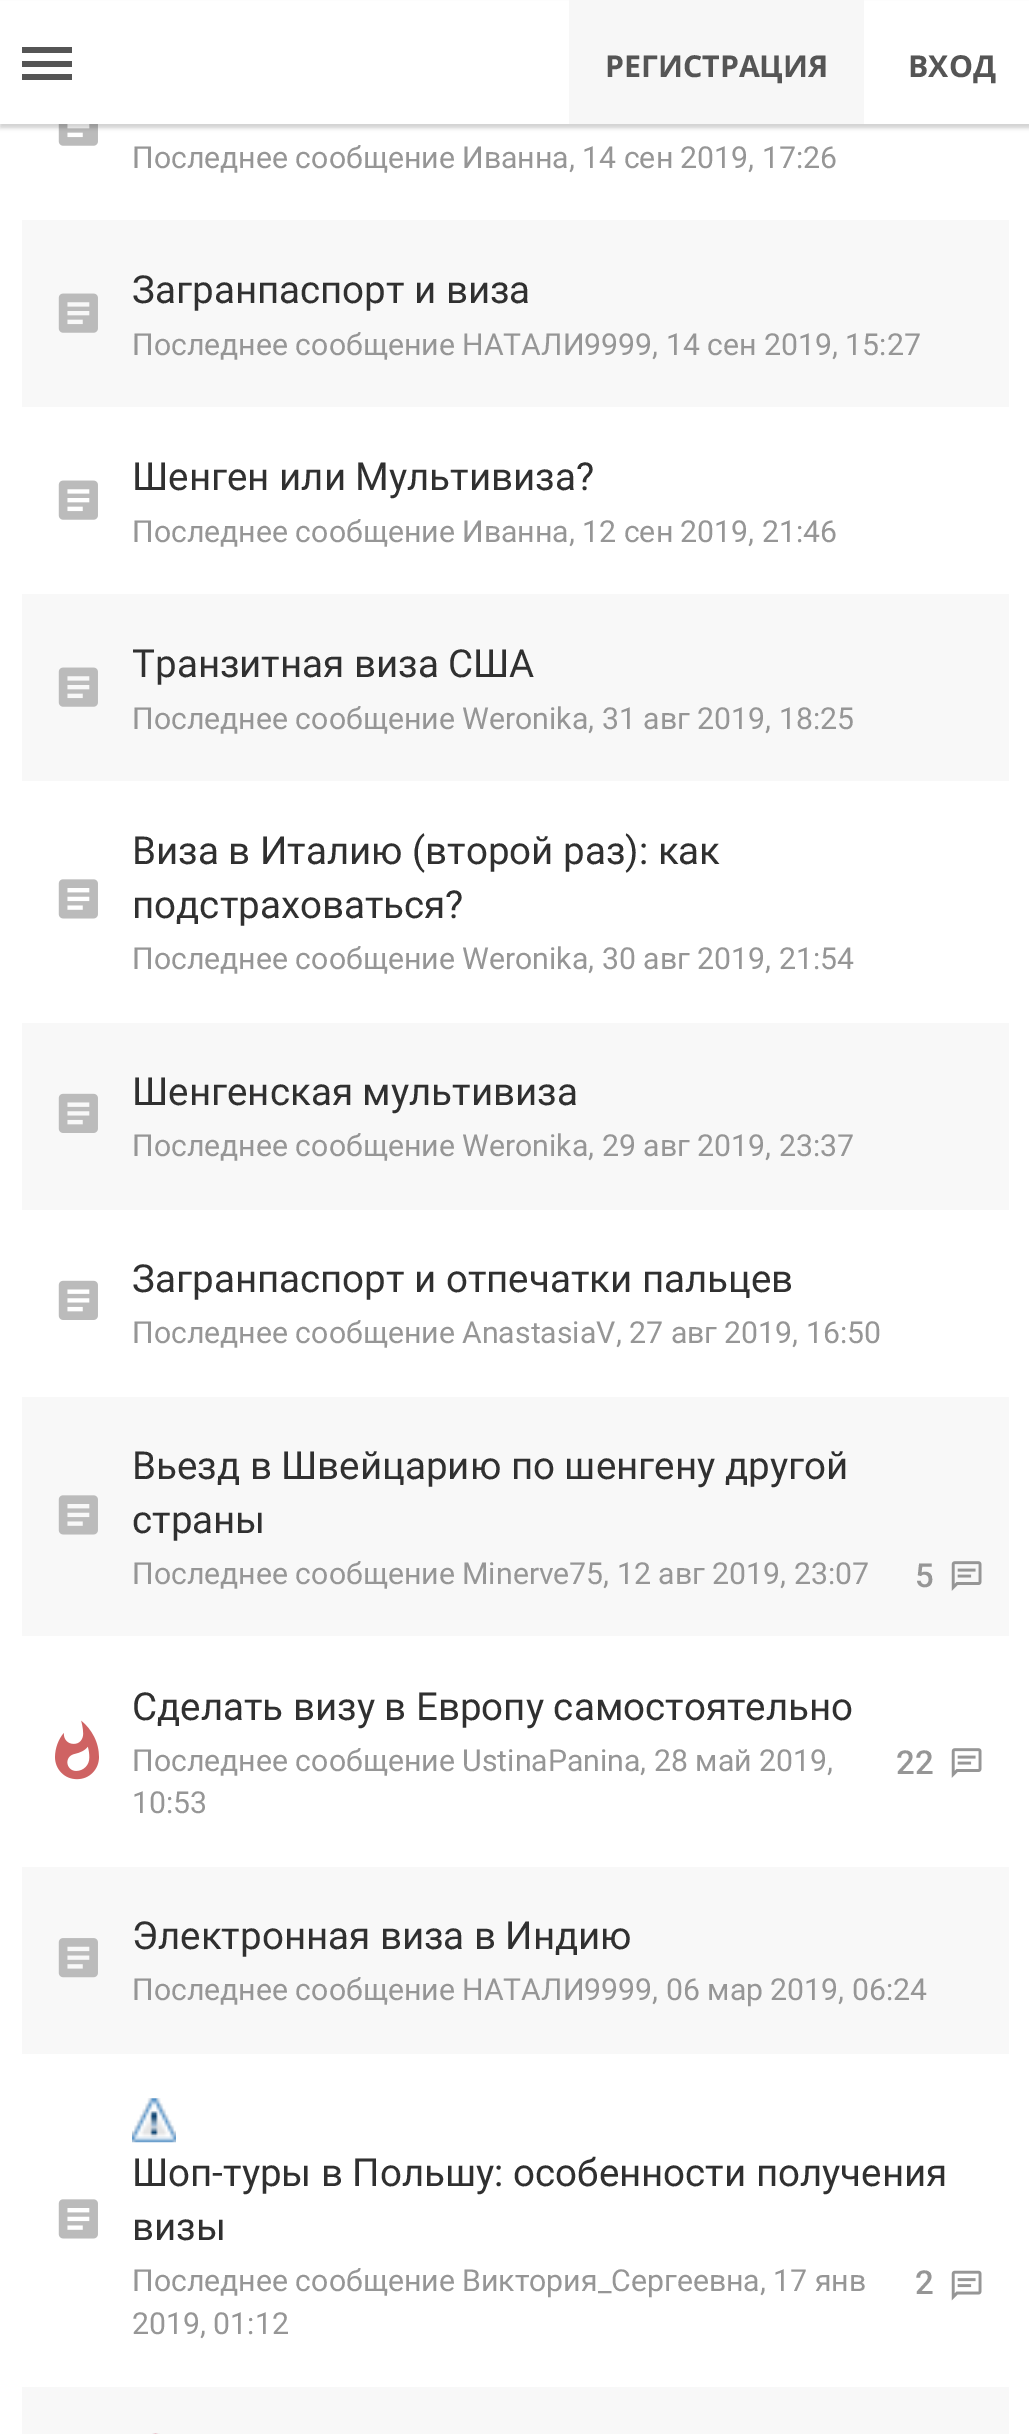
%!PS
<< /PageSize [1029 2434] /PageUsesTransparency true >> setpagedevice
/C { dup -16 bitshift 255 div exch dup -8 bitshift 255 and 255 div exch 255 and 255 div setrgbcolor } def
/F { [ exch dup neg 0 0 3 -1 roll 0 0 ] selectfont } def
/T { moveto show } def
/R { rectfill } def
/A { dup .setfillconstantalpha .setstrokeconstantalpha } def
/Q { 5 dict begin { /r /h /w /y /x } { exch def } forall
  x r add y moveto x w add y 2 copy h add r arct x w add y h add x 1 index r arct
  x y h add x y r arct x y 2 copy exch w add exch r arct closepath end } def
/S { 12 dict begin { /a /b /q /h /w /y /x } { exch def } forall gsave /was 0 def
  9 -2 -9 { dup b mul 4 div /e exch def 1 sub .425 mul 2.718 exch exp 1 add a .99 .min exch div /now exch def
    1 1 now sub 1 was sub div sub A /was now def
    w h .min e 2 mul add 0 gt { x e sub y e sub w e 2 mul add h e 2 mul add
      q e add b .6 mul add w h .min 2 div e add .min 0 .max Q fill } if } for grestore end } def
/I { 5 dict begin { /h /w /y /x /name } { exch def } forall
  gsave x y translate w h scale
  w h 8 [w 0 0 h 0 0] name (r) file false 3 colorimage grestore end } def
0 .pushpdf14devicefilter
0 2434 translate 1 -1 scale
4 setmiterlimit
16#FFFFFF C
0 0 1029 2434 R
(1.rgb) 58 124 40 22 I
16#000000 C
0 6 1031 123 0 1.5 .08 S
0 3 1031 124 0 1.5 .1 S
16#FFFFFF C
0 1 1029 123 R
16#555555 C
22 47 50 6 R
22 61 50 6 R
22 74 50 6 R
16#F7F7F7 C
569 0 295 124 R
/OpenSans-Bold 30.25 F
16#555555 C
(РЕГИСТРАЦИЯ) 605 77 T
(ВХОД) 908 77 T
/Roboto-Regular 30.25 F
16#969696 C
(Последнее сообщение Иванна, 14 сен 2019, 17:26) 132 168 T
16#F8F8F8 C
22 220 987 187 R
(2.rgb) 58 293 40 40 I
/Roboto-Regular 38.5 F
16#303030 C
(Загранпаспорт и виза) 132 303 T
/Roboto-Regular 30.25 F
16#969696 C
(Последнее сообщение НАТАЛИ9999, 14 сен 2019, 15:27) 132 355 T
(3.rgb) 58 480 40 40 I
/Roboto-Regular 38.5 F
16#303030 C
(Шенген или Мультивиза?) 132 490 T
/Roboto-Regular 30.25 F
16#969696 C
(Последнее сообщение Иванна, 12 сен 2019, 21:46) 132 542 T
16#F8F8F8 C
22 594 987 187 R
(2.rgb) 58 667 40 40 I
/Roboto-Regular 38.5 F
16#303030 C
(Транзитная виза США) 132 677 T
/Roboto-Regular 30.25 F
16#969696 C
(Последнее сообщение Weronika, 31 авг 2019, 18:25) 132 729 T
(4.rgb) 58 879 40 40 I
/Roboto-Regular 38.5 F
16#303030 C
(Виза в Италию \(второй раз\): как) 132 864 T
(подстраховаться?) 132 918 T
/Roboto-Regular 30.25 F
16#969696 C
(Последнее сообщение Weronika, 30 авг 2019, 21:54) 132 969 T
16#F8F8F8 C
22 1023 987 187 R
(5.rgb) 58 1093 40 40 I
/Roboto-Regular 38.5 F
16#303030 C
(Шенгенская мультивиза) 132 1105 T
/Roboto-Regular 30.25 F
16#969696 C
(Последнее сообщение Weronika, 29 авг 2019, 23:37) 132 1156 T
(6.rgb) 58 1280 40 40 I
/Roboto-Regular 38.5 F
16#303030 C
(Загранпаспорт и отпечатки пальцев) 132 1292 T
/Roboto-Regular 30.25 F
16#969696 C
(Последнее сообщение AnastasiaV, 27 авг 2019, 16:50) 132 1343 T
16#F8F8F8 C
22 1397 987 239 R
(7.rgb) 58 1495 40 40 I
/Roboto-Regular 38.5 F
16#303030 C
(Вьезд в Швейцарию по шенгену другой) 132 1479 T
(страны) 132 1533 T
/Roboto-Regular 30.25 F
16#969696 C
(Последнее сообщение Minerve75, 12 авг 2019, 23:07) 132 1584 T
/Roboto-Medium 33 F
(5) 915 1587 T
(8.rgb) 951 1561 31 30 I
(9.rgb) 55 1720 44 60 I
/Roboto-Regular 38.5 F
16#303030 C
(Сделать визу в Европу самостоятельно) 132 1720 T
/Roboto-Regular 30.25 F
16#969696 C
(Последнее сообщение UstinaPanina, 28 май 2019,) 132 1771 T
/Roboto-Medium 33 F
(22) 896 1774 T
(10.rgb) 951 1748 31 30 I
/Roboto-Regular 30.25 F
(10:53) 132 1813 T
16#F8F8F8 C
22 1867 987 187 R
(11.rgb) 58 1938 40 40 I
/Roboto-Regular 38.5 F
16#303030 C
(Электронная виза в Индию) 132 1949 T
/Roboto-Regular 30.25 F
16#969696 C
(Последнее сообщение НАТАЛИ9999, 06 мар 2019, 06:24) 132 2000 T
(4.rgb) 58 2199 40 40 I
(12.rgb) 132 2098 44 45 I
/Roboto-Regular 38.5 F
16#303030 C
(Шоп-туры в Польшу: особенности получения) 132 2186 T
(визы) 132 2240 T
/Roboto-Regular 30.25 F
16#969696 C
(Последнее сообщение Виктория_Сергеевна, 17 янв) 132 2291 T
/Roboto-Medium 33 F
(2) 915 2294 T
(13.rgb) 951 2270 31 31 I
/Roboto-Regular 30.25 F
(2019, 01:12) 132 2334 T
16#F8F8F8 C
22 2387 987 47 R
(14.rgb) 152 2433 8 1 I
.poppdf14devicefilter showpage
